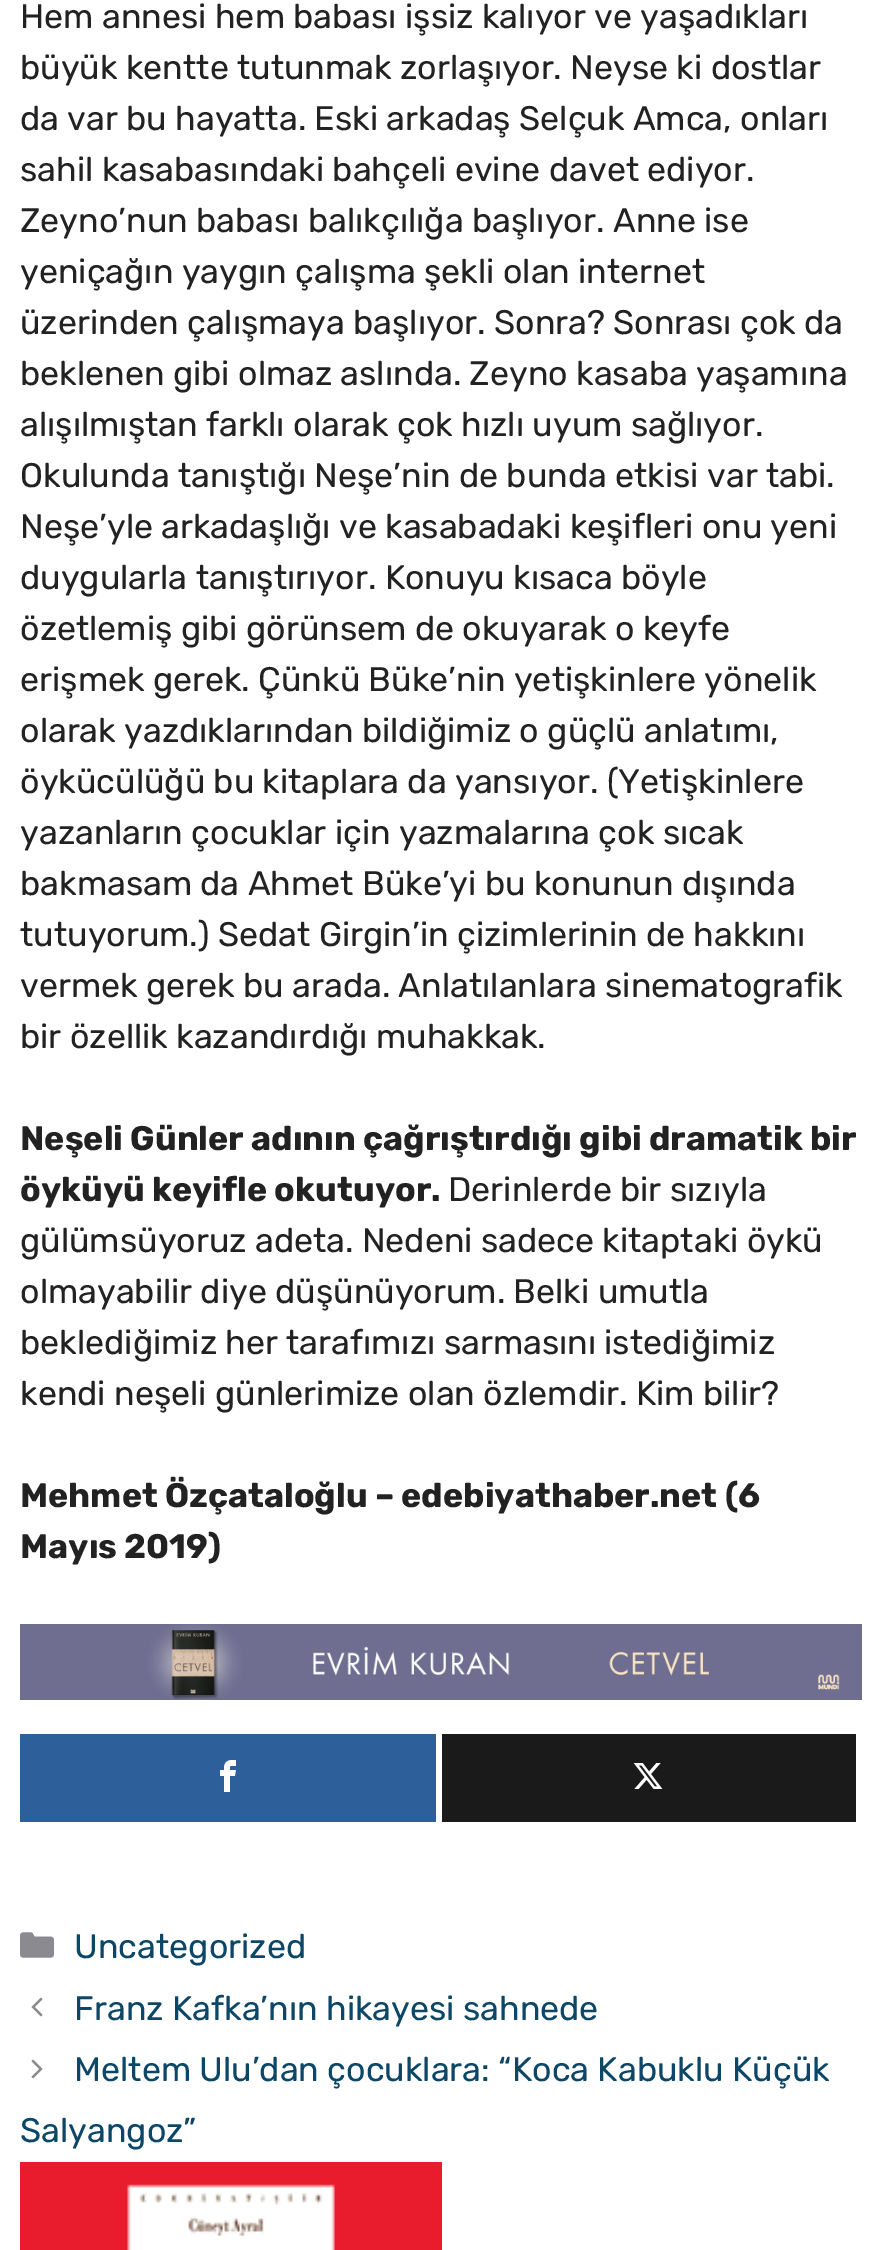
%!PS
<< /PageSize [882 2250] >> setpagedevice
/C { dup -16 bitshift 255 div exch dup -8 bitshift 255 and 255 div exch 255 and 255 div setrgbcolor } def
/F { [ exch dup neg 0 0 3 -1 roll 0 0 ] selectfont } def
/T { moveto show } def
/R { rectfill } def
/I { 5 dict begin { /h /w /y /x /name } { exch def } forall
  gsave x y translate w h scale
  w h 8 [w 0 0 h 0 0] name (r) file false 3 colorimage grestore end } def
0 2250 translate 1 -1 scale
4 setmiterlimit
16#FFFFFF C
0 0 882 2250 R
/Rubik-Regular 34 F
16#222222 C
(Hem annesi hem babası işsiz kalıyor ve yaşadıkları) 20 28 T
(büyük kentte tutunmak zorlaşıyor. Neyse ki dostlar) 20 79 T
(da var bu hayatta. Eski arkadaş Selçuk Amca, onları) 20 130 T
(sahil kasabasındaki bahçeli evine davet ediyor.) 20 181 T
(Zeyno’nun babası balıkçılığa başlıyor. Anne ise) 20 232 T
(yeniçağın yaygın çalışma şekli olan internet) 20 283 T
(üzerinden çalışmaya başlıyor. Sonra? Sonrası çok da) 20 334 T
(beklenen gibi olmaz aslında. Zeyno kasaba yaşamına) 20 385 T
(alışılmıştan farklı olarak çok hızlı uyum sağlıyor.) 20 436 T
(Okulunda tanıştığı Neşe’nin de bunda etkisi var tabi.) 20 487 T
(Neşe’yle arkadaşlığı ve kasabadaki keşifleri onu yeni) 20 538 T
(duygularla tanıştırıyor. Konuyu kısaca böyle) 20 589 T
(özetlemiş gibi görünsem de okuyarak o keyfe) 20 640 T
(erişmek gerek. Çünkü Büke’nin yetişkinlere yönelik) 20 691 T
(olarak yazdıklarından bildiğimiz o güçlü anlatımı,) 20 742 T
(öykücülüğü bu kitaplara da yansıyor. \(Yetişkinlere) 20 793 T
(yazanların çocuklar için yazmalarına çok sıcak) 20 844 T
(bakmasam da Ahmet Büke’yi bu konunun dışında) 20 895 T
(tutuyorum.\) Sedat Girgin’in çizimlerinin de hakkını) 20 946 T
(vermek gerek bu arada. Anlatılanlara sinematografik) 20 997 T
(bir özellik kazandırdığı muhakkak.) 20 1048 T
/Rubik-Bold 34 F
(Neşeli Günler adının çağrıştırdığı gibi dramatik bir) 20 1150 T
(öyküyü keyifle okutuyor.) 20 1201 T
/Rubik-Regular 34 F
(Derinlerde bir sızıyla) 448 1201 T
(gülümsüyoruz adeta. Nedeni sadece kitaptaki öykü) 20 1252 T
(olmayabilir diye düşünüyorum. Belki umutla) 20 1303 T
(beklediğimiz her tarafımızı sarmasını istediğimiz) 20 1354 T
(kendi neşeli günlerimize olan özlemdir. Kim bilir?) 20 1405 T
/Rubik-Bold 34 F
(Mehmet Özçataloğlu – edebiyathaber.net \(6) 20 1507 T
(Mayıs 2019\)) 20 1558 T
(1.rgb) 20 1624 842 76 I
16#2D5F9A C
20 1734 416 88 R
(2.rgb) 220 1760 16 32 I
16#1A1A1A C
442 1734 414 88 R
(3.rgb) 633 1763 30 26 I
(4.rgb) 20 1932 34 26 I
/Rubik-Regular 34 F
16#0C4767 C
(Uncategorized) 74 1958 T
(5.rgb) 31 1997 12 20 I
(Franz Kafka’nın hikayesi sahnede) 74 2020 T
(6.rgb) 31 2059 12 20 I
(Meltem Ulu’dan çocuklara: “Koca Kabuklu Küçük) 74 2081 T
(Salyangoz”) 20 2142 T
(7.rgb) 20 2162 422 88 I
showpage
